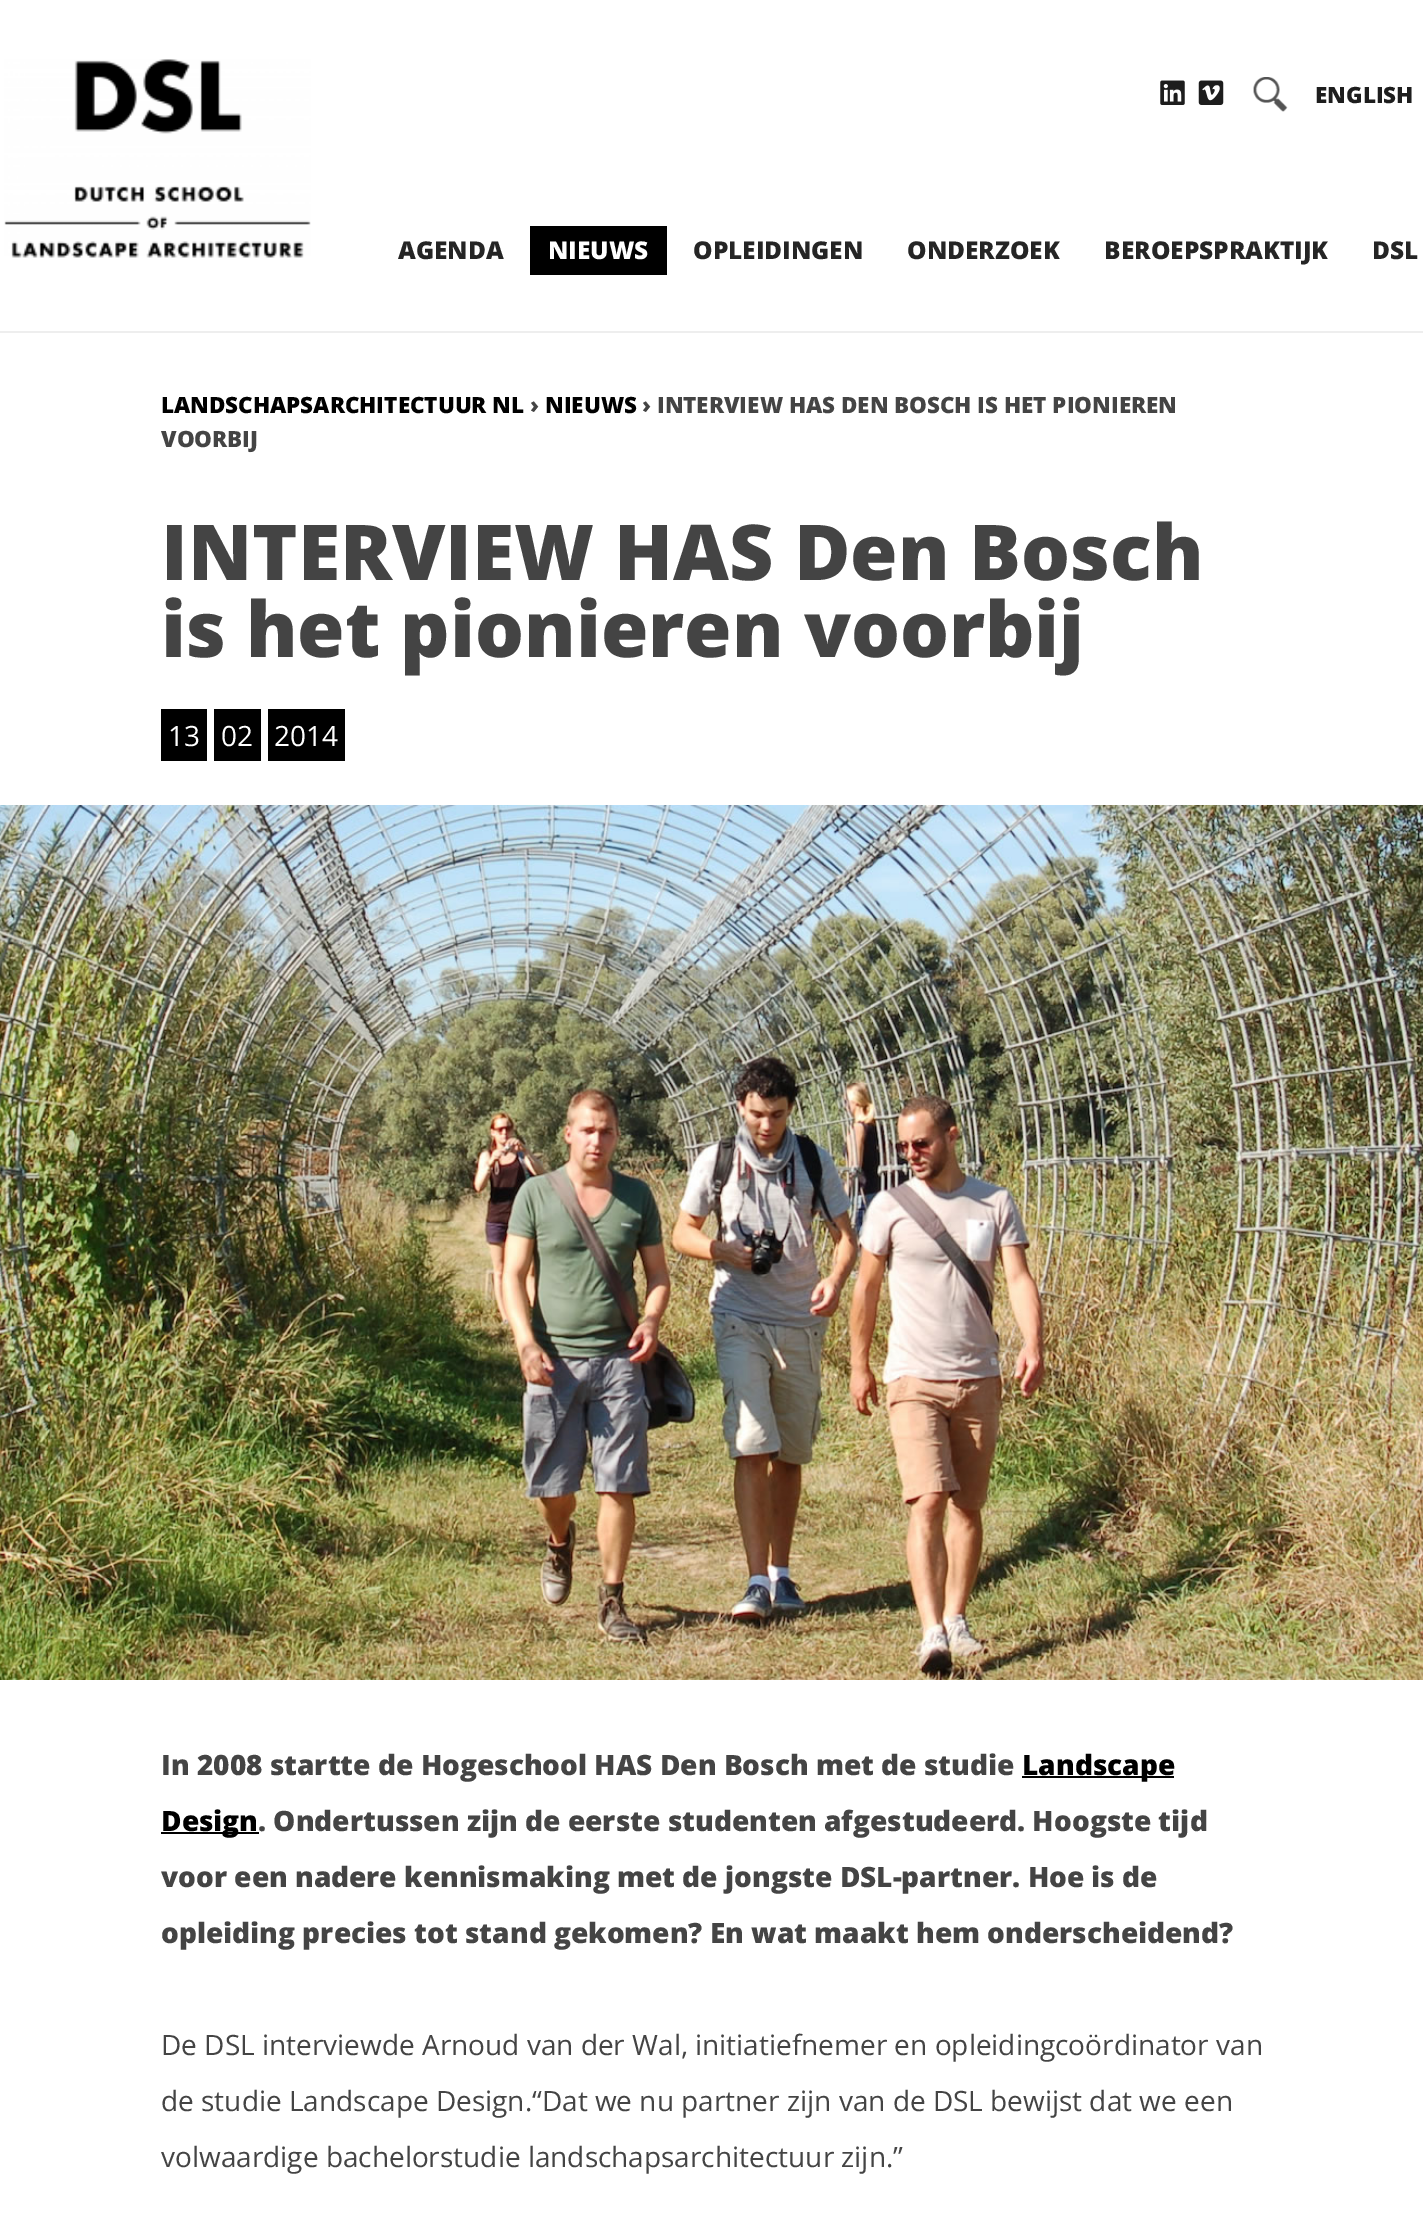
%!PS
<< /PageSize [1423 2214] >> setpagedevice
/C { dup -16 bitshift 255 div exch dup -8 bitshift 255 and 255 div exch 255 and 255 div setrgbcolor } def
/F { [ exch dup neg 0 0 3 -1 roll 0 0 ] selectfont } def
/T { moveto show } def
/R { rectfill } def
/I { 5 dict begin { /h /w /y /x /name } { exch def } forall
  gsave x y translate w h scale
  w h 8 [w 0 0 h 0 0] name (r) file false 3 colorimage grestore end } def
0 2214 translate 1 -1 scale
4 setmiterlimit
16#FFFFFF C
0 0 1423 2214 R
16#EEEEEE C
0 331 1423 2 R
(1.rgb) 4 59 307 199 I
(2.rgb) 1160 80 25 25 I
(3.rgb) 1198 80 26 25 I
(4.rgb) 1253 77 35 35 I
/OpenSans-ExtraBold 22.4 F
16#1D1D1D C
(ENGLISH) 1315 103 T
/OpenSans-ExtraBold 24.5 F
16#252525 C
(AGENDA) 398 259 T
16#000000 C
530 226 137 49 R
16#FFFFFF C
(NIEUWS) 548 259 T
16#252525 C
(OPLEIDINGEN) 693 259 T
(ONDERZOEK) 907 259 T
(BEROEPSPRAKTIJK) 1104 259 T
(DSL) 1372 259 T
/OpenSans-ExtraBold 22.4 F
16#000000 C
(LANDSCHAPSARCHITECTUUR NL) 161 413 T
16#444444 C
(›) 530 413 T
16#000000 C
(NIEUWS) 545 413 T
16#444444 C
(› INTERVIEW HAS DEN BOSCH IS HET PIONIEREN) 642 413 T
(VOORBIJ) 161 447 T
/OpenSans-ExtraBold 77 F
(INTERVIEW HAS Den Bosch) 161 580 T
(is het pionieren voorbij) 161 657 T
16#000000 C
161 709 46 52 R
/OpenSans-Regular 28 F
16#FFFFFF C
(13) 168 746 T
16#000000 C
214 709 47 52 R
16#FFFFFF C
(02) 221 746 T
16#000000 C
268 709 77 52 R
16#FFFFFF C
(2014) 274 746 T
(5.rgb) 0 805 1423 875 I
/OpenSans-ExtraBold 28 F
16#444444 C
(In 2008 startte de Hogeschool HAS Den Bosch met de studie) 161 1775 T
16#000000 C
1022 1776 152 2 R
(Landscape) 1022 1775 T
161 1832 98 2 R
(Design) 161 1831 T
16#444444 C
(. Ondertussen zijn de eerste studenten afgestudeerd. Hoogste tijd) 258 1831 T
(voor een nadere kennismaking met de jongste DSL-partner. Hoe is de) 161 1887 T
(opleiding precies tot stand gekomen? En wat maakt hem onderscheidend?) 161 1943 T
/OpenSans-Regular 28 F
(De DSL interviewde Arnoud van der Wal, initiatiefnemer en opleidingcoördinator van) 161 2055 T
(de studie Landscape Design.“Dat we nu partner zijn van de DSL bewijst dat we een) 161 2111 T
(volwaardige bachelorstudie landschapsarchitectuur zijn.”) 161 2167 T
showpage
